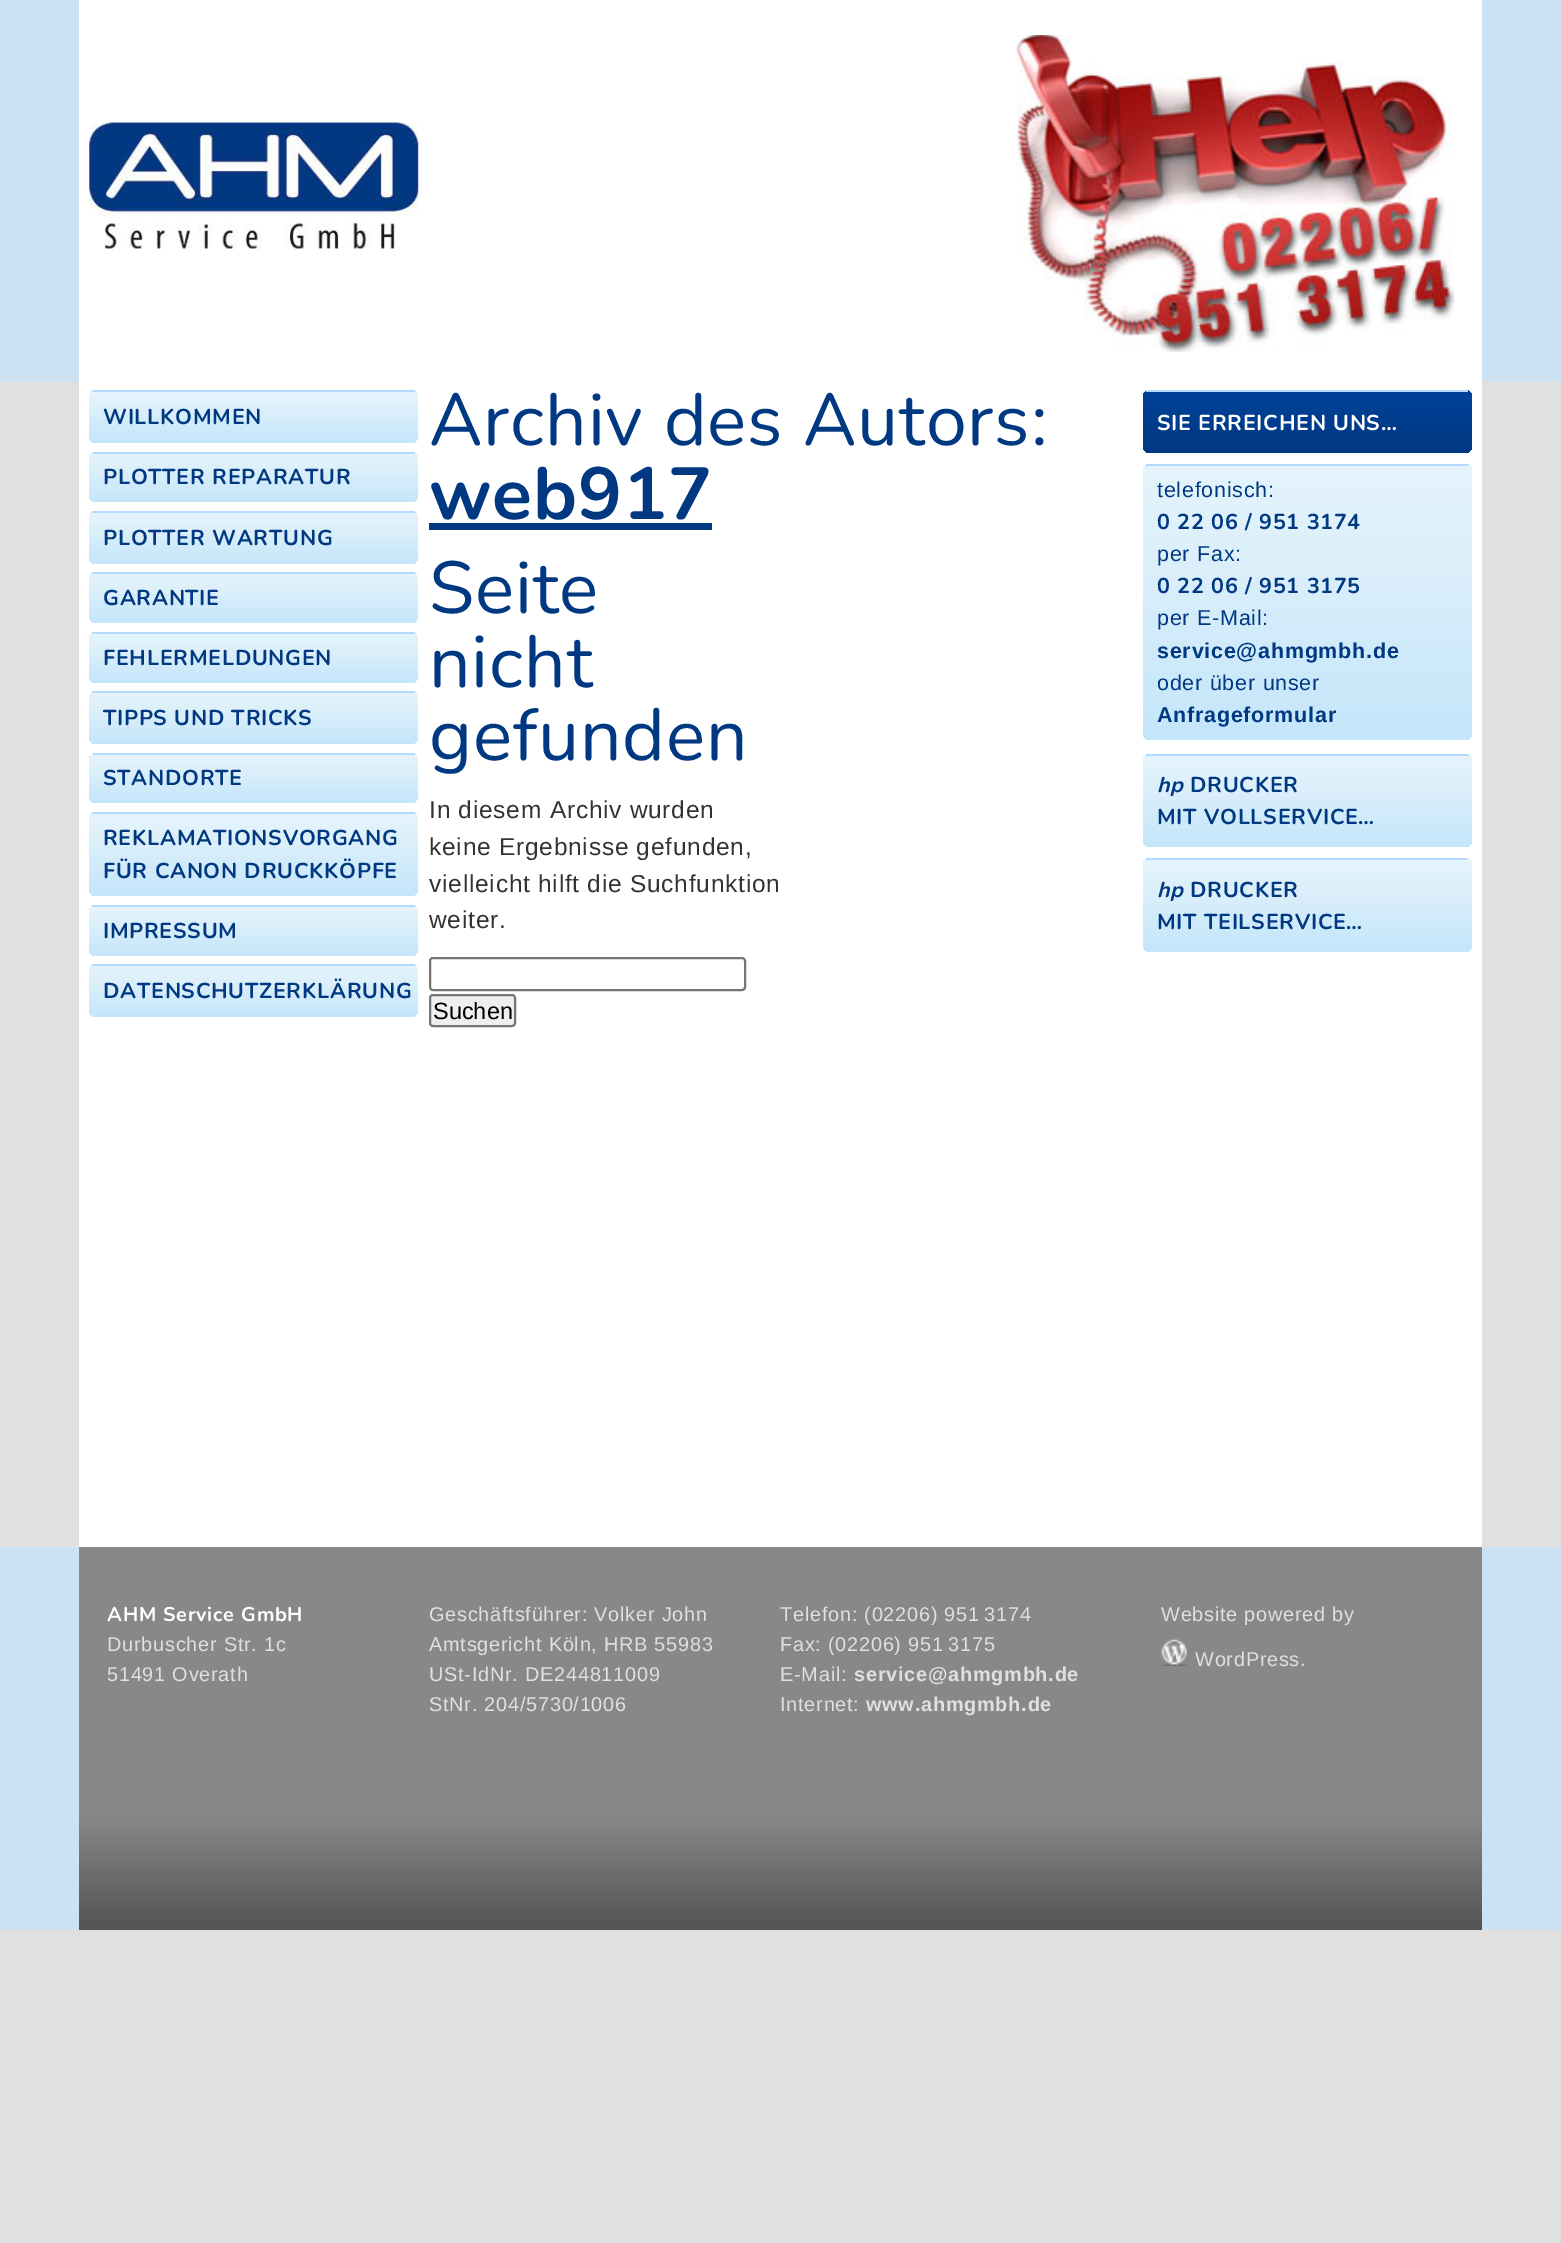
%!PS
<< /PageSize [1561 2243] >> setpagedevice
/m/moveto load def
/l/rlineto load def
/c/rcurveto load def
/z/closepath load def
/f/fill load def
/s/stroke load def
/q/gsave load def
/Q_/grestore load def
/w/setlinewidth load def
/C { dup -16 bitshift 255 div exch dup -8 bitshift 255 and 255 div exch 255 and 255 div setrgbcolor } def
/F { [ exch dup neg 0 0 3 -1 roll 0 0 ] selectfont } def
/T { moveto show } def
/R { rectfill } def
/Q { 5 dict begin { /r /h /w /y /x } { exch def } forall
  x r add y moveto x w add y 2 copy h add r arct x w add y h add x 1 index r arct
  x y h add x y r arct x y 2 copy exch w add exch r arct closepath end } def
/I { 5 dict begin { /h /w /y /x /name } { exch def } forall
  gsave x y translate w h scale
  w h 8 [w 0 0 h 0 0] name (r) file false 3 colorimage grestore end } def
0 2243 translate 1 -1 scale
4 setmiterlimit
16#E0E0E0 C
0 0 1561 2243 R
16#CCE1F2 C
0 0 1561 382 R
16#FFFFFF C
79 0 1403 1547 R
(1.rgb) 89 122 330 127 I
(2.rgb) 1016 35 439 317 I
q
89 390 329 53 7 Q clip newpath
q 89 390 m 329 0 l 0 2 l -329 0 l z clip newpath
<< /ShadingType 2 /ColorSpace /DeviceRGB /Coords [254 341 254 392] /Extend [true true] /Function << /FunctionType 3 /Domain [0 1] /Functions [<< /FunctionType 2 /Domain [0 1] /C0 [.898 .957 .992] /C1 [.855 .937 .98] /N 1 >> << /FunctionType 2 /Domain [0 1] /C0 [.855 .937 .98] /C1 [.769 .902 .98] /N 1 >>] /Bounds [.4] /Encode [0 1 0 1] >> >> shfill Q_
q 89 392 m 329 0 l 0 44 l 0 4 -3 7 -7 7 c -315 0 l -4 0 -7 -3 -7 -7 c z clip newpath
<< /ShadingType 2 /ColorSpace /DeviceRGB /Coords [254 392 254 443] /Extend [true true] /Function << /FunctionType 3 /Domain [0 1] /Functions [<< /FunctionType 2 /Domain [0 1] /C0 [.898 .957 .992] /C1 [.855 .937 .98] /N 1 >> << /FunctionType 2 /Domain [0 1] /C0 [.855 .937 .98] /C1 [.769 .902 .98] /N 1 >>] /Bounds [.4] /Encode [0 1 0 1] >> >> shfill Q_
Q_
16#B3D9FF C
93 390 322 2 R
/Nunito-Bold 21.5 F
16#003882 C
103 424 m .75 0 (WILLKOMMEN) ashow
q
89 452 329 50 7 Q clip newpath
q 89 453 m 329 0 l 0 42 l 0 4 -3 7 -7 7 c -315 0 l -4 0 -7 -3 -7 -7 c z clip newpath
<< /ShadingType 2 /ColorSpace /DeviceRGB /Coords [254 453 254 502] /Extend [true true] /Function << /FunctionType 3 /Domain [0 1] /Functions [<< /FunctionType 2 /Domain [0 1] /C0 [.898 .957 .992] /C1 [.855 .937 .98] /N 1 >> << /FunctionType 2 /Domain [0 1] /C0 [.855 .937 .98] /C1 [.769 .902 .98] /N 1 >>] /Bounds [.4] /Encode [0 1 0 1] >> >> shfill Q_
Q_
16#B3D9FF C
93 452 322 2 R
16#003882 C
103 484 m .75 0 (PLOTTER REPARATUR) ashow
q
89 511 329 53 7 Q clip newpath
q 89 511 m 329 0 l 0 2 l -329 0 l z clip newpath
<< /ShadingType 2 /ColorSpace /DeviceRGB /Coords [254 462 254 513] /Extend [true true] /Function << /FunctionType 3 /Domain [0 1] /Functions [<< /FunctionType 2 /Domain [0 1] /C0 [.898 .957 .992] /C1 [.855 .937 .98] /N 1 >> << /FunctionType 2 /Domain [0 1] /C0 [.855 .937 .98] /C1 [.769 .902 .98] /N 1 >>] /Bounds [.4] /Encode [0 1 0 1] >> >> shfill Q_
q 89 513 m 329 0 l 0 44 l 0 4 -3 7 -7 7 c -315 0 l -4 0 -7 -3 -7 -7 c z clip newpath
<< /ShadingType 2 /ColorSpace /DeviceRGB /Coords [254 513 254 564] /Extend [true true] /Function << /FunctionType 3 /Domain [0 1] /Functions [<< /FunctionType 2 /Domain [0 1] /C0 [.898 .957 .992] /C1 [.855 .937 .98] /N 1 >> << /FunctionType 2 /Domain [0 1] /C0 [.855 .937 .98] /C1 [.769 .902 .98] /N 1 >>] /Bounds [.4] /Encode [0 1 0 1] >> >> shfill Q_
Q_
16#B3D9FF C
93 511 322 2 R
16#003882 C
103 545 m .75 0 (PLOTTER WARTUNG) ashow
q
89 572 329 51 7 Q clip newpath
q 89 572 m 329 0 l 0 2 l -329 0 l z clip newpath
<< /ShadingType 2 /ColorSpace /DeviceRGB /Coords [254 525 254 574] /Extend [true true] /Function << /FunctionType 3 /Domain [0 1] /Functions [<< /FunctionType 2 /Domain [0 1] /C0 [.898 .957 .992] /C1 [.855 .937 .98] /N 1 >> << /FunctionType 2 /Domain [0 1] /C0 [.855 .937 .98] /C1 [.769 .902 .98] /N 1 >>] /Bounds [.4] /Encode [0 1 0 1] >> >> shfill Q_
q 89 574 m 329 0 l 0 42 l 0 4 -3 7 -7 7 c -315 0 l -4 0 -7 -3 -7 -7 c z clip newpath
<< /ShadingType 2 /ColorSpace /DeviceRGB /Coords [254 574 254 623] /Extend [true true] /Function << /FunctionType 3 /Domain [0 1] /Functions [<< /FunctionType 2 /Domain [0 1] /C0 [.898 .957 .992] /C1 [.855 .937 .98] /N 1 >> << /FunctionType 2 /Domain [0 1] /C0 [.855 .937 .98] /C1 [.769 .902 .98] /N 1 >>] /Bounds [.4] /Encode [0 1 0 1] >> >> shfill Q_
Q_
16#B3D9FF C
93 572 322 2 R
16#003882 C
103 605 m .75 0 (GARANTIE) ashow
q
89 632 329 51 7 Q clip newpath
q 89 632 m 329 0 l 0 2 l -329 0 l z clip newpath
<< /ShadingType 2 /ColorSpace /DeviceRGB /Coords [254 585 254 634] /Extend [true true] /Function << /FunctionType 3 /Domain [0 1] /Functions [<< /FunctionType 2 /Domain [0 1] /C0 [.898 .957 .992] /C1 [.855 .937 .98] /N 1 >> << /FunctionType 2 /Domain [0 1] /C0 [.855 .937 .98] /C1 [.769 .902 .98] /N 1 >>] /Bounds [.4] /Encode [0 1 0 1] >> >> shfill Q_
q 89 634 m 329 0 l 0 42 l 0 4 -3 7 -7 7 c -315 0 l -4 0 -7 -3 -7 -7 c z clip newpath
<< /ShadingType 2 /ColorSpace /DeviceRGB /Coords [254 634 254 683] /Extend [true true] /Function << /FunctionType 3 /Domain [0 1] /Functions [<< /FunctionType 2 /Domain [0 1] /C0 [.898 .957 .992] /C1 [.855 .937 .98] /N 1 >> << /FunctionType 2 /Domain [0 1] /C0 [.855 .937 .98] /C1 [.769 .902 .98] /N 1 >>] /Bounds [.4] /Encode [0 1 0 1] >> >> shfill Q_
Q_
16#B3D9FF C
93 632 322 2 R
16#003882 C
103 665 m .75 0 (FEHLERMELDUNGEN) ashow
q
89 691 329 53 7 Q clip newpath
q 89 691 m 329 0 l 0 2 l -329 0 l z clip newpath
<< /ShadingType 2 /ColorSpace /DeviceRGB /Coords [254 642 254 693] /Extend [true true] /Function << /FunctionType 3 /Domain [0 1] /Functions [<< /FunctionType 2 /Domain [0 1] /C0 [.898 .957 .992] /C1 [.855 .937 .98] /N 1 >> << /FunctionType 2 /Domain [0 1] /C0 [.855 .937 .98] /C1 [.769 .902 .98] /N 1 >>] /Bounds [.4] /Encode [0 1 0 1] >> >> shfill Q_
q 89 693 m 329 0 l 0 44 l 0 4 -3 7 -7 7 c -315 0 l -4 0 -7 -3 -7 -7 c z clip newpath
<< /ShadingType 2 /ColorSpace /DeviceRGB /Coords [254 693 254 744] /Extend [true true] /Function << /FunctionType 3 /Domain [0 1] /Functions [<< /FunctionType 2 /Domain [0 1] /C0 [.898 .957 .992] /C1 [.855 .937 .98] /N 1 >> << /FunctionType 2 /Domain [0 1] /C0 [.855 .937 .98] /C1 [.769 .902 .98] /N 1 >>] /Bounds [.4] /Encode [0 1 0 1] >> >> shfill Q_
Q_
16#B3D9FF C
93 691 322 2 R
16#003882 C
103 725 m .75 0 (TIPPS UND TRICKS) ashow
q
89 753 329 50 7 Q clip newpath
q 89 754 m 329 0 l 0 42 l 0 4 -3 7 -7 7 c -315 0 l -4 0 -7 -3 -7 -7 c z clip newpath
<< /ShadingType 2 /ColorSpace /DeviceRGB /Coords [254 754 254 803] /Extend [true true] /Function << /FunctionType 3 /Domain [0 1] /Functions [<< /FunctionType 2 /Domain [0 1] /C0 [.898 .957 .992] /C1 [.855 .937 .98] /N 1 >> << /FunctionType 2 /Domain [0 1] /C0 [.855 .937 .98] /C1 [.769 .902 .98] /N 1 >>] /Bounds [.4] /Encode [0 1 0 1] >> >> shfill Q_
Q_
16#B3D9FF C
93 753 322 2 R
16#003882 C
103 785 m .75 0 (STANDORTE) ashow
q
89 812 329 84 7 Q clip newpath
q 89 812 m 329 0 l 0 2 l -329 0 l z clip newpath
<< /ShadingType 2 /ColorSpace /DeviceRGB /Coords [254 732 254 814] /Extend [true true] /Function << /FunctionType 3 /Domain [0 1] /Functions [<< /FunctionType 2 /Domain [0 1] /C0 [.898 .957 .992] /C1 [.855 .937 .98] /N 1 >> << /FunctionType 2 /Domain [0 1] /C0 [.855 .937 .98] /C1 [.769 .902 .98] /N 1 >>] /Bounds [.4] /Encode [0 1 0 1] >> >> shfill Q_
q 89 814 m 329 0 l 0 75 l 0 4 -3 7 -7 7 c -315 0 l -4 0 -7 -3 -7 -7 c z clip newpath
<< /ShadingType 2 /ColorSpace /DeviceRGB /Coords [254 814 254 896] /Extend [true true] /Function << /FunctionType 3 /Domain [0 1] /Functions [<< /FunctionType 2 /Domain [0 1] /C0 [.898 .957 .992] /C1 [.855 .937 .98] /N 1 >> << /FunctionType 2 /Domain [0 1] /C0 [.855 .937 .98] /C1 [.769 .902 .98] /N 1 >>] /Bounds [.4] /Encode [0 1 0 1] >> >> shfill Q_
Q_
16#B3D9FF C
93 812 322 2 R
16#003882 C
103 845 m .75 0 (REKLAMATIONSVORGANG) ashow
103 878 m .75 0 (FÜR CANON DRUCKKÖPFE) ashow
q
89 905 329 51 7 Q clip newpath
q 89 905 m 329 0 l 0 2 l -329 0 l z clip newpath
<< /ShadingType 2 /ColorSpace /DeviceRGB /Coords [254 858 254 907] /Extend [true true] /Function << /FunctionType 3 /Domain [0 1] /Functions [<< /FunctionType 2 /Domain [0 1] /C0 [.898 .957 .992] /C1 [.855 .937 .98] /N 1 >> << /FunctionType 2 /Domain [0 1] /C0 [.855 .937 .98] /C1 [.769 .902 .98] /N 1 >>] /Bounds [.4] /Encode [0 1 0 1] >> >> shfill Q_
q 89 907 m 329 0 l 0 42 l 0 4 -3 7 -7 7 c -315 0 l -4 0 -7 -3 -7 -7 c z clip newpath
<< /ShadingType 2 /ColorSpace /DeviceRGB /Coords [254 907 254 956] /Extend [true true] /Function << /FunctionType 3 /Domain [0 1] /Functions [<< /FunctionType 2 /Domain [0 1] /C0 [.898 .957 .992] /C1 [.855 .937 .98] /N 1 >> << /FunctionType 2 /Domain [0 1] /C0 [.855 .937 .98] /C1 [.769 .902 .98] /N 1 >>] /Bounds [.4] /Encode [0 1 0 1] >> >> shfill Q_
Q_
16#B3D9FF C
93 905 322 2 R
16#003882 C
103 938 m .75 0 (IMPRESSUM) ashow
q
89 964 329 53 7 Q clip newpath
q 89 964 m 329 0 l 0 2 l -329 0 l z clip newpath
<< /ShadingType 2 /ColorSpace /DeviceRGB /Coords [254 915 254 966] /Extend [true true] /Function << /FunctionType 3 /Domain [0 1] /Functions [<< /FunctionType 2 /Domain [0 1] /C0 [.898 .957 .992] /C1 [.855 .937 .98] /N 1 >> << /FunctionType 2 /Domain [0 1] /C0 [.855 .937 .98] /C1 [.769 .902 .98] /N 1 >>] /Bounds [.4] /Encode [0 1 0 1] >> >> shfill Q_
q 89 966 m 329 0 l 0 44 l 0 4 -3 7 -7 7 c -315 0 l -4 0 -7 -3 -7 -7 c z clip newpath
<< /ShadingType 2 /ColorSpace /DeviceRGB /Coords [254 966 254 1017] /Extend [true true] /Function << /FunctionType 3 /Domain [0 1] /Functions [<< /FunctionType 2 /Domain [0 1] /C0 [.898 .957 .992] /C1 [.855 .937 .98] /N 1 >> << /FunctionType 2 /Domain [0 1] /C0 [.855 .937 .98] /C1 [.769 .902 .98] /N 1 >>] /Bounds [.4] /Encode [0 1 0 1] >> >> shfill Q_
Q_
16#B3D9FF C
93 964 322 2 R
16#003882 C
103 998 m .75 0 (DATENSCHUTZERKLÄRUNG) ashow
/Nunito-Regular 73.5 F
429 445 m .75 0 (Archiv des Autors:) ashow
/Nunito-Bold 73.5 F
429 519 m .75 0 (web917) ashow
429 523 283 7 R
/Nunito-Regular 73.5 F
429 613 m .75 0 (Seite) ashow
429 687 m .75 0 (nicht) ashow
429 760 m .75 0 (gefunden) ashow
/LiberationSans-Regular 24.5 F
16#333333 C
429 818 m .75 0 (In diesem Archiv wurden) ashow
429 855 m .75 0 (keine Ergebnisse gefunden,) ashow
429 892 m .75 0 (vielleicht hilft die Suchfunktion) ashow
429 928 m .75 0 (weiter.) ashow
16#767676 C
2 w
430 958 315 32 3 Q s
16#EFEFEF C
430 995 85 31 3 Q q f Q_
16#767676 C
s
/LiberationSans-Regular 23.5 F
16#000000 C
(Suchen) 433 1019 T
q
1143 390 329 63 7 Q clip newpath
q 1143 390 m 329 0 l 0 2 l -329 0 l z clip newpath
<< /ShadingType 2 /ColorSpace /DeviceRGB /Coords [1307 331 1307 392] /Extend [true true] /Function << /FunctionType 2 /Domain [0 1] /C0 [0 .259 .6] /C1 [0 .22 .51] /N 1 >> >> shfill Q_
q 1143 392 m 329 0 l 0 54 l 0 4 -3 7 -7 7 c -315 0 l -4 0 -7 -3 -7 -7 c z clip newpath
<< /ShadingType 2 /ColorSpace /DeviceRGB /Coords [1307 392 1307 453] /Extend [true true] /Function << /FunctionType 2 /Domain [0 1] /C0 [0 .259 .6] /C1 [0 .22 .51] /N 1 >> >> shfill Q_
Q_
16#B3D9FF C
1146 390 322 2 R
/Nunito-Bold 21.5 F
16#FFFFFF C
1157 430 m .75 0 (SIE ERREICHEN UNS…) ashow
q
1143 464 329 276 7 Q clip newpath
q 1143 464 m 329 0 l 0 2 l -329 0 l z clip newpath
<< /ShadingType 2 /ColorSpace /DeviceRGB /Coords [1307 191 1307 466] /Extend [true true] /Function << /FunctionType 3 /Domain [0 1] /Functions [<< /FunctionType 2 /Domain [0 1] /C0 [.898 .957 .992] /C1 [.855 .937 .98] /N 1 >> << /FunctionType 2 /Domain [0 1] /C0 [.855 .937 .98] /C1 [.769 .902 .98] /N 1 >>] /Bounds [.4] /Encode [0 1 0 1] >> >> shfill Q_
q 1143 466 m 329 0 l 0 267 l 0 4 -3 7 -7 7 c -315 0 l -4 0 -7 -3 -7 -7 c z clip newpath
<< /ShadingType 2 /ColorSpace /DeviceRGB /Coords [1307 466 1307 740] /Extend [true true] /Function << /FunctionType 3 /Domain [0 1] /Functions [<< /FunctionType 2 /Domain [0 1] /C0 [.898 .957 .992] /C1 [.855 .937 .98] /N 1 >> << /FunctionType 2 /Domain [0 1] /C0 [.855 .937 .98] /C1 [.769 .902 .98] /N 1 >>] /Bounds [.4] /Encode [0 1 0 1] >> >> shfill Q_
Q_
16#B3D9FF C
1146 464 322 2 R
/LiberationSans-Regular 21.5 F
16#003882 C
1157 497 m .75 0 (telefonisch:) ashow
/Nunito-Bold 21.5 F
1157 529 m .75 0 (0 22 06 / 951 3174) ashow
/LiberationSans-Regular 21.5 F
1157 561 m .75 0 (per Fax:) ashow
/Nunito-Bold 21.5 F
1157 593 m .75 0 (0 22 06 / 951 3175) ashow
/LiberationSans-Regular 21.5 F
1157 625 m .75 0 (per E-Mail:) ashow
/LiberationSans-Bold 21.5 F
1157 658 m .75 0 (service@ahmgmbh.de) ashow
/LiberationSans-Regular 21.5 F
1157 690 m .75 0 (oder über unser) ashow
/LiberationSans-Bold 21.5 F
1157 722 m .75 0 (Anfrageformular) ashow
q
1143 754 329 93 7 Q clip newpath
q 1143 754 m 329 0 l 0 2 l -329 0 l z clip newpath
<< /ShadingType 2 /ColorSpace /DeviceRGB /Coords [1307 665 1307 756] /Extend [true true] /Function << /FunctionType 3 /Domain [0 1] /Functions [<< /FunctionType 2 /Domain [0 1] /C0 [.898 .957 .992] /C1 [.855 .937 .98] /N 1 >> << /FunctionType 2 /Domain [0 1] /C0 [.855 .937 .98] /C1 [.769 .902 .98] /N 1 >>] /Bounds [.4] /Encode [0 1 0 1] >> >> shfill Q_
q 1143 756 m 329 0 l 0 84 l 0 4 -3 7 -7 7 c -315 0 l -4 0 -7 -3 -7 -7 c z clip newpath
<< /ShadingType 2 /ColorSpace /DeviceRGB /Coords [1307 756 1307 847] /Extend [true true] /Function << /FunctionType 3 /Domain [0 1] /Functions [<< /FunctionType 2 /Domain [0 1] /C0 [.898 .957 .992] /C1 [.855 .937 .98] /N 1 >> << /FunctionType 2 /Domain [0 1] /C0 [.855 .937 .98] /C1 [.769 .902 .98] /N 1 >>] /Bounds [.4] /Encode [0 1 0 1] >> >> shfill Q_
Q_
16#B3D9FF C
1146 754 322 2 R
/Nunito-BoldItalic 21.5 F
16#003882 C
1157 792 m .75 0 (hp) ashow
/Nunito-Bold 21.5 F
1190 792 m .75 0 (DRUCKER) ashow
1157 824 m .75 0 (MIT VOLLSERVICE…) ashow
q
1143 858 329 94 7 Q clip newpath
q 1143 859 m 329 0 l 0 86 l 0 4 -3 7 -7 7 c -315 0 l -4 0 -7 -3 -7 -7 c z clip newpath
<< /ShadingType 2 /ColorSpace /DeviceRGB /Coords [1307 859 1307 952] /Extend [true true] /Function << /FunctionType 3 /Domain [0 1] /Functions [<< /FunctionType 2 /Domain [0 1] /C0 [.898 .957 .992] /C1 [.855 .937 .98] /N 1 >> << /FunctionType 2 /Domain [0 1] /C0 [.855 .937 .98] /C1 [.769 .902 .98] /N 1 >>] /Bounds [.4] /Encode [0 1 0 1] >> >> shfill Q_
Q_
16#B3D9FF C
1146 858 322 2 R
/Nunito-BoldItalic 21.5 F
16#003882 C
1157 897 m .75 0 (hp) ashow
/Nunito-Bold 21.5 F
1190 897 m .75 0 (DRUCKER) ashow
1157 929 m .75 0 (MIT TEILSERVICE…) ashow
16#CCE1F2 C
0 1547 1561 383 R
q 79 1547 m 1403 0 l 0 383 l -1403 0 l z clip newpath
<< /ShadingType 2 /ColorSpace /DeviceRGB /Coords [781 1547 781 1930] /Extend [true true] /Function << /FunctionType 3 /Domain [0 1] /Functions [<< /FunctionType 2 /Domain [0 1] /C0 [.533 .533 .533] /C1 [.533 .533 .533] /N 1 >> << /FunctionType 2 /Domain [0 1] /C0 [.533 .533 .533] /C1 [.329 .329 .329] /N 1 >>] /Bounds [.7] /Encode [0 1 0 1] >> >> shfill Q_
/Nunito-Bold 19.9 F
16#FFFFFF C
107 1621 m .75 0 (AHM Service GmbH) ashow
/LiberationSans-Regular 19.9 F
16#E0E0E0 C
107 1651 m .75 0 (Durbuscher Str. 1c) ashow
107 1681 m .75 0 (51491 Overath) ashow
429 1621 m .75 0 (Geschäftsführer: Volker John) ashow
429 1651 m .75 0 (Amtsgericht Köln, HRB 55983) ashow
429 1681 m .75 0 (USt-IdNr. DE244811009) ashow
429 1711 m .75 0 (StNr. 204/5730/1006) ashow
780 1621 m .75 0 (Telefon: \(02206\) 951 3174) ashow
780 1651 m .75 0 (Fax: \(02206\) 951 3175) ashow
780 1681 m .75 0 (E-Mail:) ashow
/LiberationSans-Bold 19.9 F
854 1681 m .75 0 (service@ahmgmbh.de) ashow
/LiberationSans-Regular 19.9 F
780 1711 m .75 0 (Internet:) ashow
/LiberationSans-Bold 19.9 F
866 1711 m .75 0 (www.ahmgmbh.de) ashow
/LiberationSans-Regular 19.9 F
1161 1621 m .75 0 (Website powered by) ashow
(3.rgb) 1161 1639 27 27 I
1195 1666 m .75 0 (WordPress.) ashow
showpage
